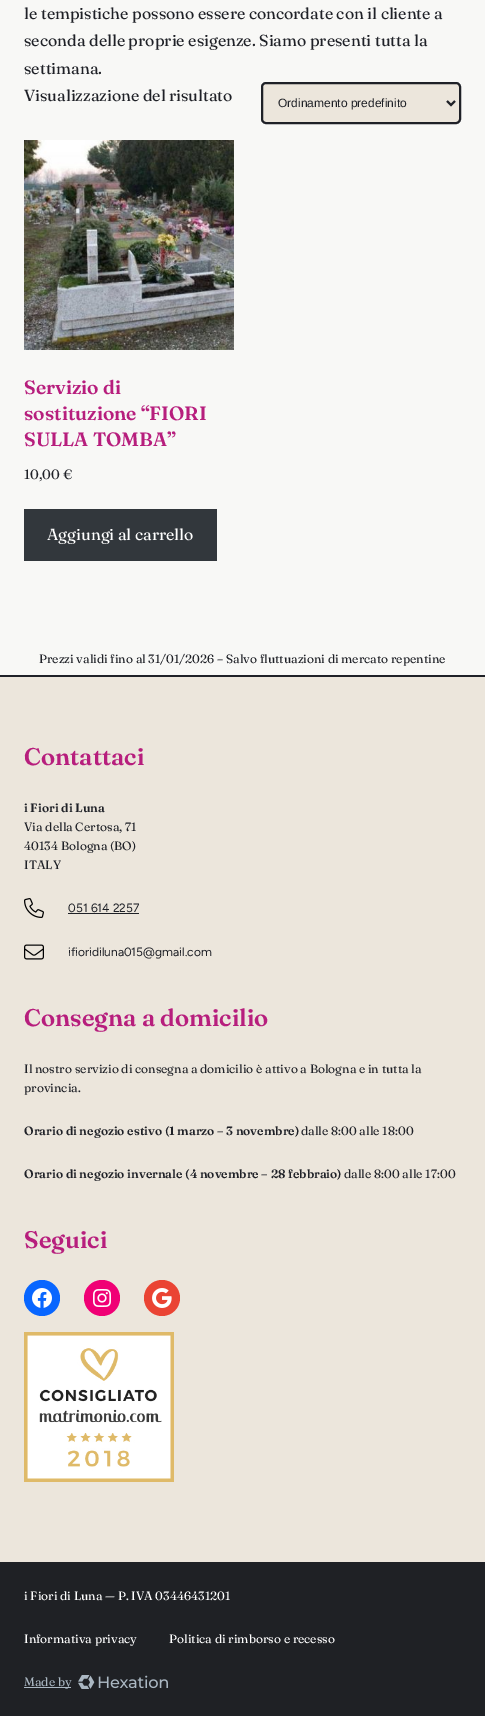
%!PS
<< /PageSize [485 1716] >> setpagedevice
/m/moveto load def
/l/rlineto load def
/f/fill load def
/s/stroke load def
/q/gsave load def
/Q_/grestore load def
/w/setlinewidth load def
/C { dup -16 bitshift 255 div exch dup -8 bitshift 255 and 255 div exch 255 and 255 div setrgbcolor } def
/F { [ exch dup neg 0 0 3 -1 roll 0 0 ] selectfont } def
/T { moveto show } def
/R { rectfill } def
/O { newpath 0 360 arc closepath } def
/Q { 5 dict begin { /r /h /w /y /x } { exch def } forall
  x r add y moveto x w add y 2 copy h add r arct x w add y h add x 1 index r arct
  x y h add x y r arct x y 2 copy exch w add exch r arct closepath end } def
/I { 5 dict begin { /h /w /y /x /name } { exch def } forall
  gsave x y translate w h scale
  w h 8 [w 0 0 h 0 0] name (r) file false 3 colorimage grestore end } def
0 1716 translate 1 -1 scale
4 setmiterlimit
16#F8F8F6 C
0 0 485 1716 R
/Fraunces-Regular 16 F
16#1F2127 C
(le tempistiche possono essere concordate con il cliente a) 24 19 T
(seconda delle proprie esigenze. Siamo presenti tutta la) 24 46 T
(settimana.) 24 74 T
(Visualizzazione del risultato) 24 101 T
16#ECE6DC C
262 83 198 40 4 Q q f Q_
16#1F2127 C
2 w
s
447 101 m 4 4 l 4 -4 l s
/LiberationSans-Regular 12 F
(Ordinamento predefinito) 278 107 T
(1.rgb) 24 140 210 210 I
/Fraunces-SemiBold 19.25 F
16#B71E7D C
(Servizio di) 24 394 T
(sostituzione “FIORI) 24 420 T
(SULLA TOMBA”) 24 446 T
/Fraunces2-Regular 13.5 F
16#1F2127 C
(10,00 €) 24 479 T
16#32373C C
24 509 193 52 R
/Fraunces-Regular 16 F
16#FFFFFF C
(Aggiungi al carrello) 47 540 T
/Fraunces2-Regular 12 F
16#1F2127 C
39 663 m -.1 0 32 (Prezzi validi fino al 31/01/2026 – Salvo fluttuazioni di mercato repentine) widthshow
16#ECE6DC C
0 677 485 885 R
16#1F2127 C
0 675 485 2 R
/Fraunces2-SemiBold 24 F
16#B71E7D C
(Contattaci) 24 765 T
/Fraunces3-SemiBold 12 F
16#1F2127 C
(i Fiori di Luna) 24 812 T
/Fraunces2-Regular 12 F
(Via della Certosa, 71) 24 831 T
(40134 Bologna \(BO\)) 24 850 T
(ITALY) 24 869 T
(2.rgb) 24 898 20 20 I
/Figtree-Regular 12 F
(051 614 2257) 68 912 T
68 913 71 1 R
(3.rgb) 24 944 20 16 I
(ifioridiluna015@gmail.com) 68 956 T
/Fraunces2-SemiBold 24 F
16#B71E7D C
(Consegna a domicilio) 24 1026 T
/Fraunces2-Regular 12 F
16#1F2127 C
(Il nostro servizio di consegna a domicilio è attivo a Bologna e in tutta la) 24 1073 T
(provincia.) 24 1092 T
/Fraunces3-SemiBold 12 F
(Orario di negozio estivo \(1 marzo – 3 novembre\)) 24 1135 T
/Fraunces2-Regular 12 F
(dalle 8:00 alle 18:00) 301 1135 T
/Fraunces3-SemiBold 12 F
(Orario di negozio invernale \(4 novembre – 28 febbraio\)) 24 1178 T
/Fraunces2-Regular 12 F
(dalle 8:00 alle 17:00) 344 1178 T
/Fraunces2-SemiBold 24 F
16#B71E7D C
(Seguici) 24 1248 T
16#0866FF C
42 1298 18 O f
(4.rgb) 32 1288 20 20 I
16#F00075 C
102 1298 18 O f
(5.rgb) 93 1289 18 18 I
16#EA4434 C
162 1298 18 O f
(6.rgb) 152 1288 20 20 I
(7.rgb) 24 1332 150 150 I
16#1F2125 C
0 1562 485 154 R
/Fraunces2-Regular 12 F
16#FFFFFF C
(i Fiori di Luna — P. IVA 03446431201) 24 1600 T
(Informativa privacy) 24 1643 T
(Politica di rimborso e recesso) 169 1643 T
16#ABB8C3 C
24 1687 47 1 R
(Made by) 24 1686 T
(8.rgb) 78 1675 90 14 I
showpage
